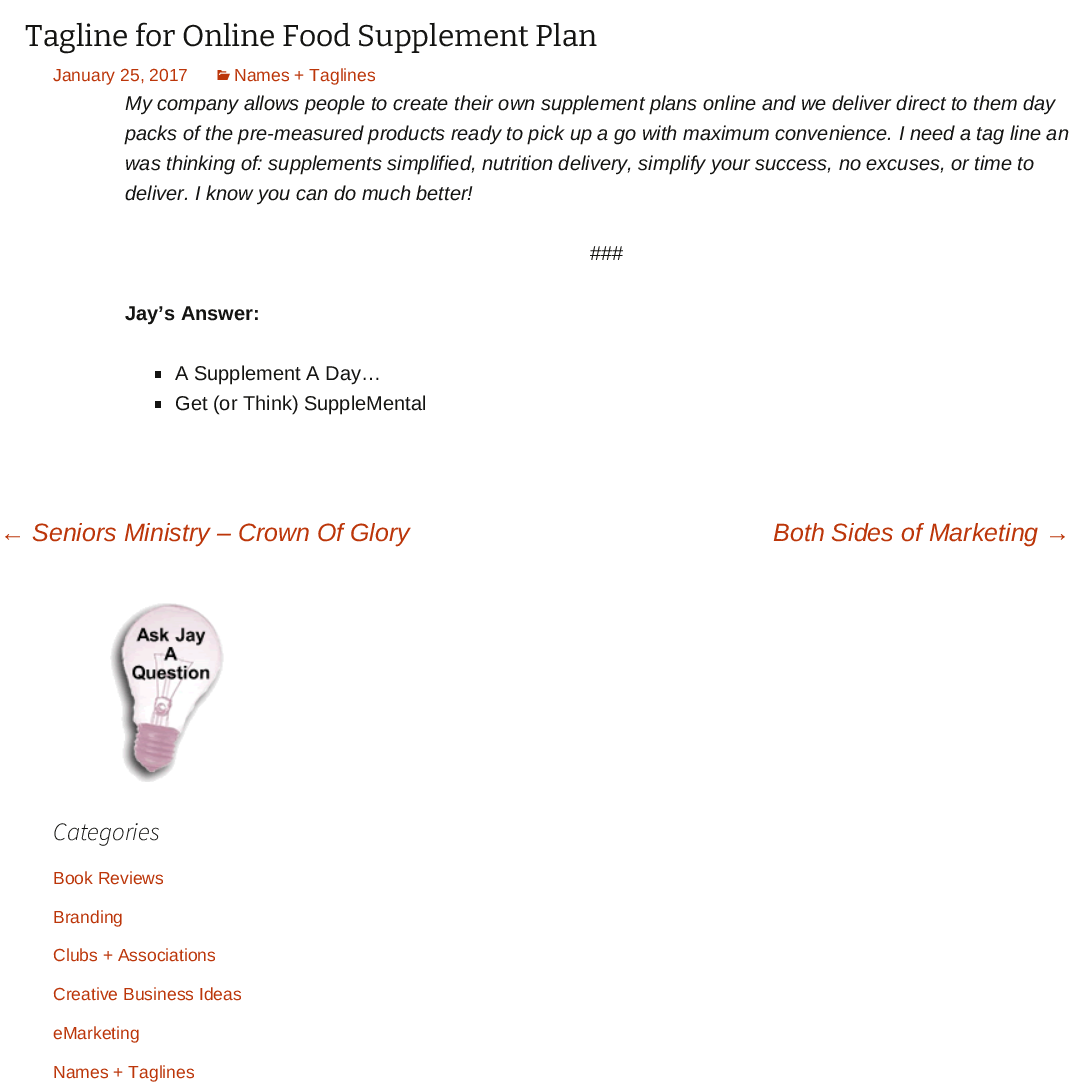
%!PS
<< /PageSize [1070 1084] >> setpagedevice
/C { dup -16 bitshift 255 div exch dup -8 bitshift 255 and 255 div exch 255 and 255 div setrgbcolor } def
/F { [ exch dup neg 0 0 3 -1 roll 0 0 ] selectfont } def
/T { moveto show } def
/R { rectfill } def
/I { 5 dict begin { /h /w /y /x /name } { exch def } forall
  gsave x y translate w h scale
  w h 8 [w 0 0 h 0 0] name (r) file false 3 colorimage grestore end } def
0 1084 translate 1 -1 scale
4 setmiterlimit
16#FFFFFF C
0 0 1070 1084 R
/Bitter-Thin 30 F
16#141412 C
(Tagline for Online Food Supplement Plan) 25 46 T
/LiberationSans-Regular 17.5 F
16#BC360A C
(January 25, 2017) 53 81 T
(1.rgb) 217 70 13 10 I
(Names + Taglines) 234 81 T
/LiberationSans-Italic 20 F
16#141412 C
(My company allows people to create their own supplement plans online and we deliver direct to them day) 125 110 T
(packs of the pre-measured products ready to pick up a go with maximum convenience. I need a tag line an) 125 140 T
(was thinking of: supplements simplified, nutrition delivery, simplify your success, no excuses, or time to) 125 170 T
(deliver. I know you can do much better!) 125 200 T
/LiberationSans-Regular 20 F
(###) 590 260 T
/LiberationSans-Bold 20 F
(Jay’s Answer:) 125 320 T
155 371 6 7 R
/LiberationSans-Regular 20 F
(A Supplement A Day…) 175 380 T
155 401 6 7 R
(Get \(or Think\) SuppleMental) 175 410 T
/LiberationSans-Italic 25 F
16#BC360A C
(← Seniors Ministry – Crown Of Glory) 0 541 T
(Both Sides of Marketing →) 773 541 T
(2.rgb) 110 603 114 179 I
/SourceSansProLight-LightItalic 25 F
16#141412 C
(Categories) 53 840 T
/LiberationSans-Regular 17.5 F
16#BC360A C
(Book Reviews) 53 884 T
(Branding) 53 923 T
(Clubs + Associations) 53 961 T
(Creative Business Ideas) 53 1000 T
(eMarketing) 53 1039 T
(Names + Taglines) 53 1078 T
showpage
